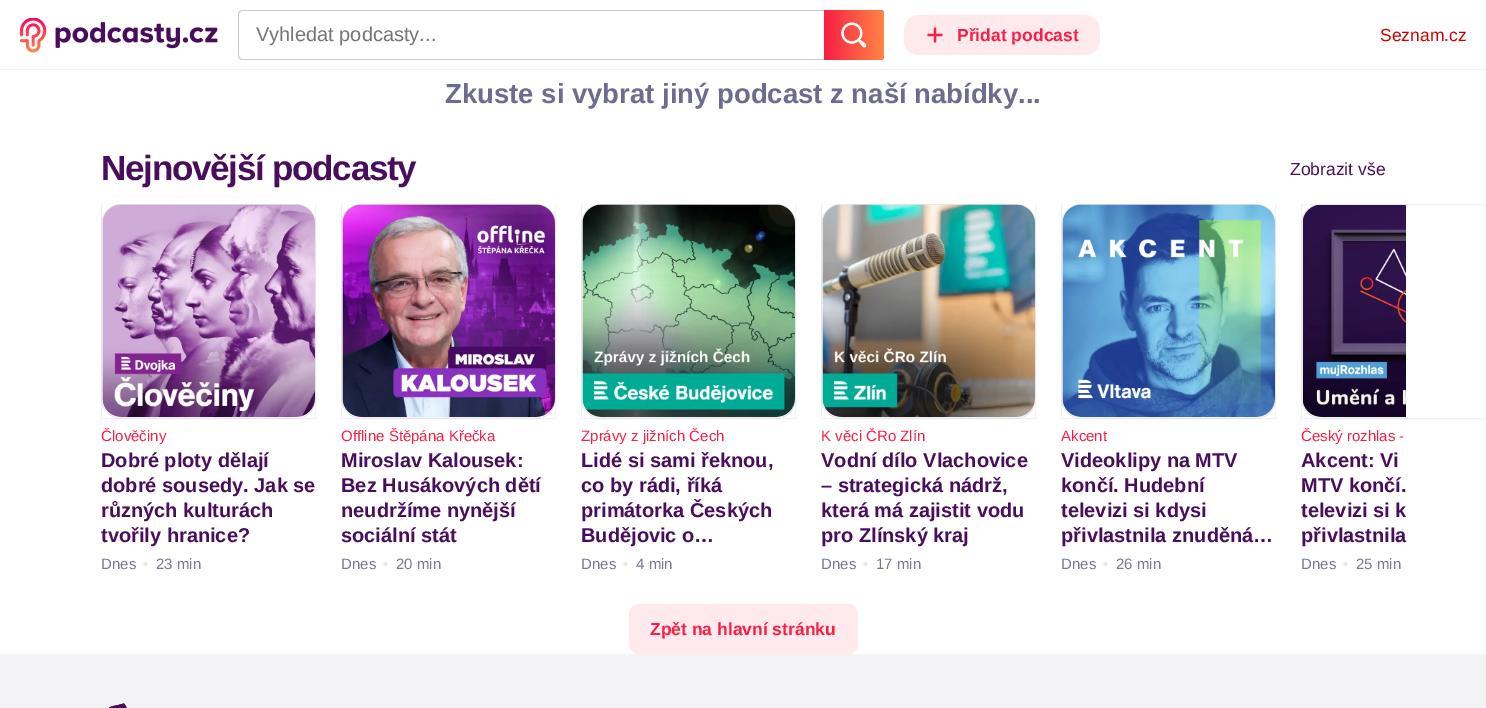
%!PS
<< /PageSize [1486 708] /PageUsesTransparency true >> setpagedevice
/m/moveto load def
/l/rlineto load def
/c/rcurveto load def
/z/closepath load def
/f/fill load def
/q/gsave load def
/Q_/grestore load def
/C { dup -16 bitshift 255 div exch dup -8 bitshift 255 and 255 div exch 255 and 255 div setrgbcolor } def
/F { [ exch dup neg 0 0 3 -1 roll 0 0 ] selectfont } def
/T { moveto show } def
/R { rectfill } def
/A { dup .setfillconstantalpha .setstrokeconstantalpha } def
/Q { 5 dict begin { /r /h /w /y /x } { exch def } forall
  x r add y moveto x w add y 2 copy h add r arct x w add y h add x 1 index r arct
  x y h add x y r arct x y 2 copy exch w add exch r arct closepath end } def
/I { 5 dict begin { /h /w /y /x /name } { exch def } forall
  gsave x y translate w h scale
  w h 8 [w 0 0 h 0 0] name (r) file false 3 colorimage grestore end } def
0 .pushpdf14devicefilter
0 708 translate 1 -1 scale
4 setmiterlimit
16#FFFFFF C
0 0 1486 708 R
16#F0F0F4 C
0 69 1486 1 R
(1.rgb) 20 18 198 35 I
16#CCCCCC C
242 10 m 582 0 l 0 50 l -582 0 l -2 0 -4 -2 -4 -5 c 0 -40 l 0 -3 2 -5 4 -5 c z 242 11 m 582 0 l 0 48 l -582 0 l -2 0 -3 -2 -3 -4 c 0 -40 l 0 -2 1 -4 3 -4 c z eofill
/LiberationSans-Regular 20 F
16#757575 C
(Vyhledat podcasty...) 256 41 T
q 824 10 m 55 0 l 3 0 5 2 5 5 c 0 40 l 0 3 -2 5 -5 5 c -55 0 l z clip newpath
<< /ShadingType 2 /ColorSpace /DeviceRGB /Coords [824 35 884 35] /Extend [true true] /Function << /FunctionType 2 /Domain [0 1] /C0 [.973 .118 .271] /C1 [1 .525 .267] /N 1 >> >> shfill Q_
(2.rgb) 841 22 26 26 I
16#FEE9EC C
904 15 196 40 15 Q f
(3.rgb) 927 27 16 16 I
/LiberationSans-Bold 17.5 F
16#F81E45 C
(Přidat podcast) 957 41 T
/LiberationSans-Regular 17.5 F
16#CC0000 C
(Seznam.cz) 1380 41 T
/LiberationSans-Bold 27.5 F
16#6D6C8E C
(Zkuste si vybrat jiný podcast z naší nabídky...) 445 103 T
/LiberationSans-Bold 35 F
16#490E5B C
101 180 m -1.25 0 (Nejnovější podcasty) ashow
/LiberationSans-Regular 17.5 F
(Zobrazit vše) 1290 175 T
16#F2F2F2 C
101 204 215 215 20 Q f
0.05 A
16#000000 C
101.5 204.5 214 214 rectstroke
1 A
(4.rgb) 102 204 213 213 I
/LiberationSans-Regular 15 F
16#F81E45 C
(Člověčiny) 101 441 T
/LiberationSans-Bold 20 F
16#490E5B C
(Dobré ploty dělají) 101 467 T
(dobré sousedy. Jak se) 101 492 T
(různých kulturách) 101 517 T
(tvořily hranice?) 101 542 T
/LiberationSans-Regular 15 F
16#797897 C
(Dnes) 101 569 T
16#E7E7EC C
(•) 143 569 T
16#797897 C
(23 min) 156 569 T
16#F2F2F2 C
341 204 215 215 20 Q f
0.05 A
16#000000 C
341.5 204.5 214 214 rectstroke
1 A
(5.rgb) 342 204 213 213 I
16#F81E45 C
(Offline Štěpána Křečka) 341 441 T
/LiberationSans-Bold 20 F
16#490E5B C
(Miroslav Kalousek:) 341 467 T
(Bez Husákových dětí) 341 492 T
(neudržíme nynější) 341 517 T
(sociální stát) 341 542 T
/LiberationSans-Regular 15 F
16#797897 C
(Dnes) 341 569 T
16#E7E7EC C
(•) 383 569 T
16#797897 C
(20 min) 396 569 T
16#F2F2F2 C
581 204 215 215 20 Q f
0.05 A
16#000000 C
581.5 204.5 214 214 rectstroke
1 A
(6.rgb) 582 204 213 213 I
16#F81E45 C
(Zprávy z jižních Čech) 581 441 T
/LiberationSans-Bold 20 F
16#490E5B C
(Lidé si sami řeknou,) 581 467 T
(co by rádi, říká) 581 492 T
(primátorka Českých) 581 517 T
(Budějovic o…) 581 542 T
/LiberationSans-Regular 15 F
16#797897 C
(Dnes) 581 569 T
16#E7E7EC C
(•) 623 569 T
16#797897 C
(4 min) 636 569 T
16#F2F2F2 C
821 204 215 215 20 Q f
0.05 A
16#000000 C
821.5 204.5 214 214 rectstroke
1 A
(7.rgb) 822 204 213 213 I
16#F81E45 C
(K věci ČRo Zlín) 821 441 T
/LiberationSans-Bold 20 F
16#490E5B C
(Vodní dílo Vlachovice) 821 467 T
(– strategická nádrž,) 821 492 T
(která má zajistit vodu) 821 517 T
(pro Zlínský kraj) 821 542 T
/LiberationSans-Regular 15 F
16#797897 C
(Dnes) 821 569 T
16#E7E7EC C
(•) 863 569 T
16#797897 C
(17 min) 876 569 T
16#F2F2F2 C
1061 204 215 215 20 Q f
0.05 A
16#000000 C
1061.5 204.5 214 214 rectstroke
1 A
(8.rgb) 1062 204 213 213 I
16#F81E45 C
(Akcent) 1061 441 T
/LiberationSans-Bold 20 F
16#490E5B C
(Videoklipy na MTV) 1061 467 T
(končí. Hudební) 1061 492 T
(televizi si kdysi) 1061 517 T
(přivlastnila znuděná…) 1061 542 T
/LiberationSans-Regular 15 F
16#797897 C
(Dnes) 1061 569 T
16#E7E7EC C
(•) 1103 569 T
16#797897 C
(26 min) 1116 569 T
16#F2F2F2 C
1321 204 m 85 0 l 0 215 l -85 0 l -11 0 -20 -9 -20 -20 c 0 -175 l 0 -11 9 -20 20 -20 c z f
0.05 A
16#000000 C
1301.5 204.5 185 214 rectstroke
1 A
(9.rgb) 1303 205 103 212 I
16#F81E45 C
(Český rozhlas -) 1301 441 T
/LiberationSans-Bold 20 F
16#490E5B C
(Akcent: Vi) 1301 467 T
(MTV končí.) 1301 492 T
(televizi si k) 1301 517 T
(přivlastnila) 1301 542 T
/LiberationSans-Regular 15 F
16#797897 C
(Dnes) 1301 569 T
16#E7E7EC C
(•) 1343 569 T
16#797897 C
(25 min) 1356 569 T
16#FEE9EC C
629 604 229 50 10 Q f
/LiberationSans-Bold 17.5 F
16#F81E45 C
(Zpět na hlavní stránku) 650 635 T
16#F3F3F5 C
0 654 1486 54 R
(10.rgb) 109 703 18 5 I
.poppdf14devicefilter showpage
